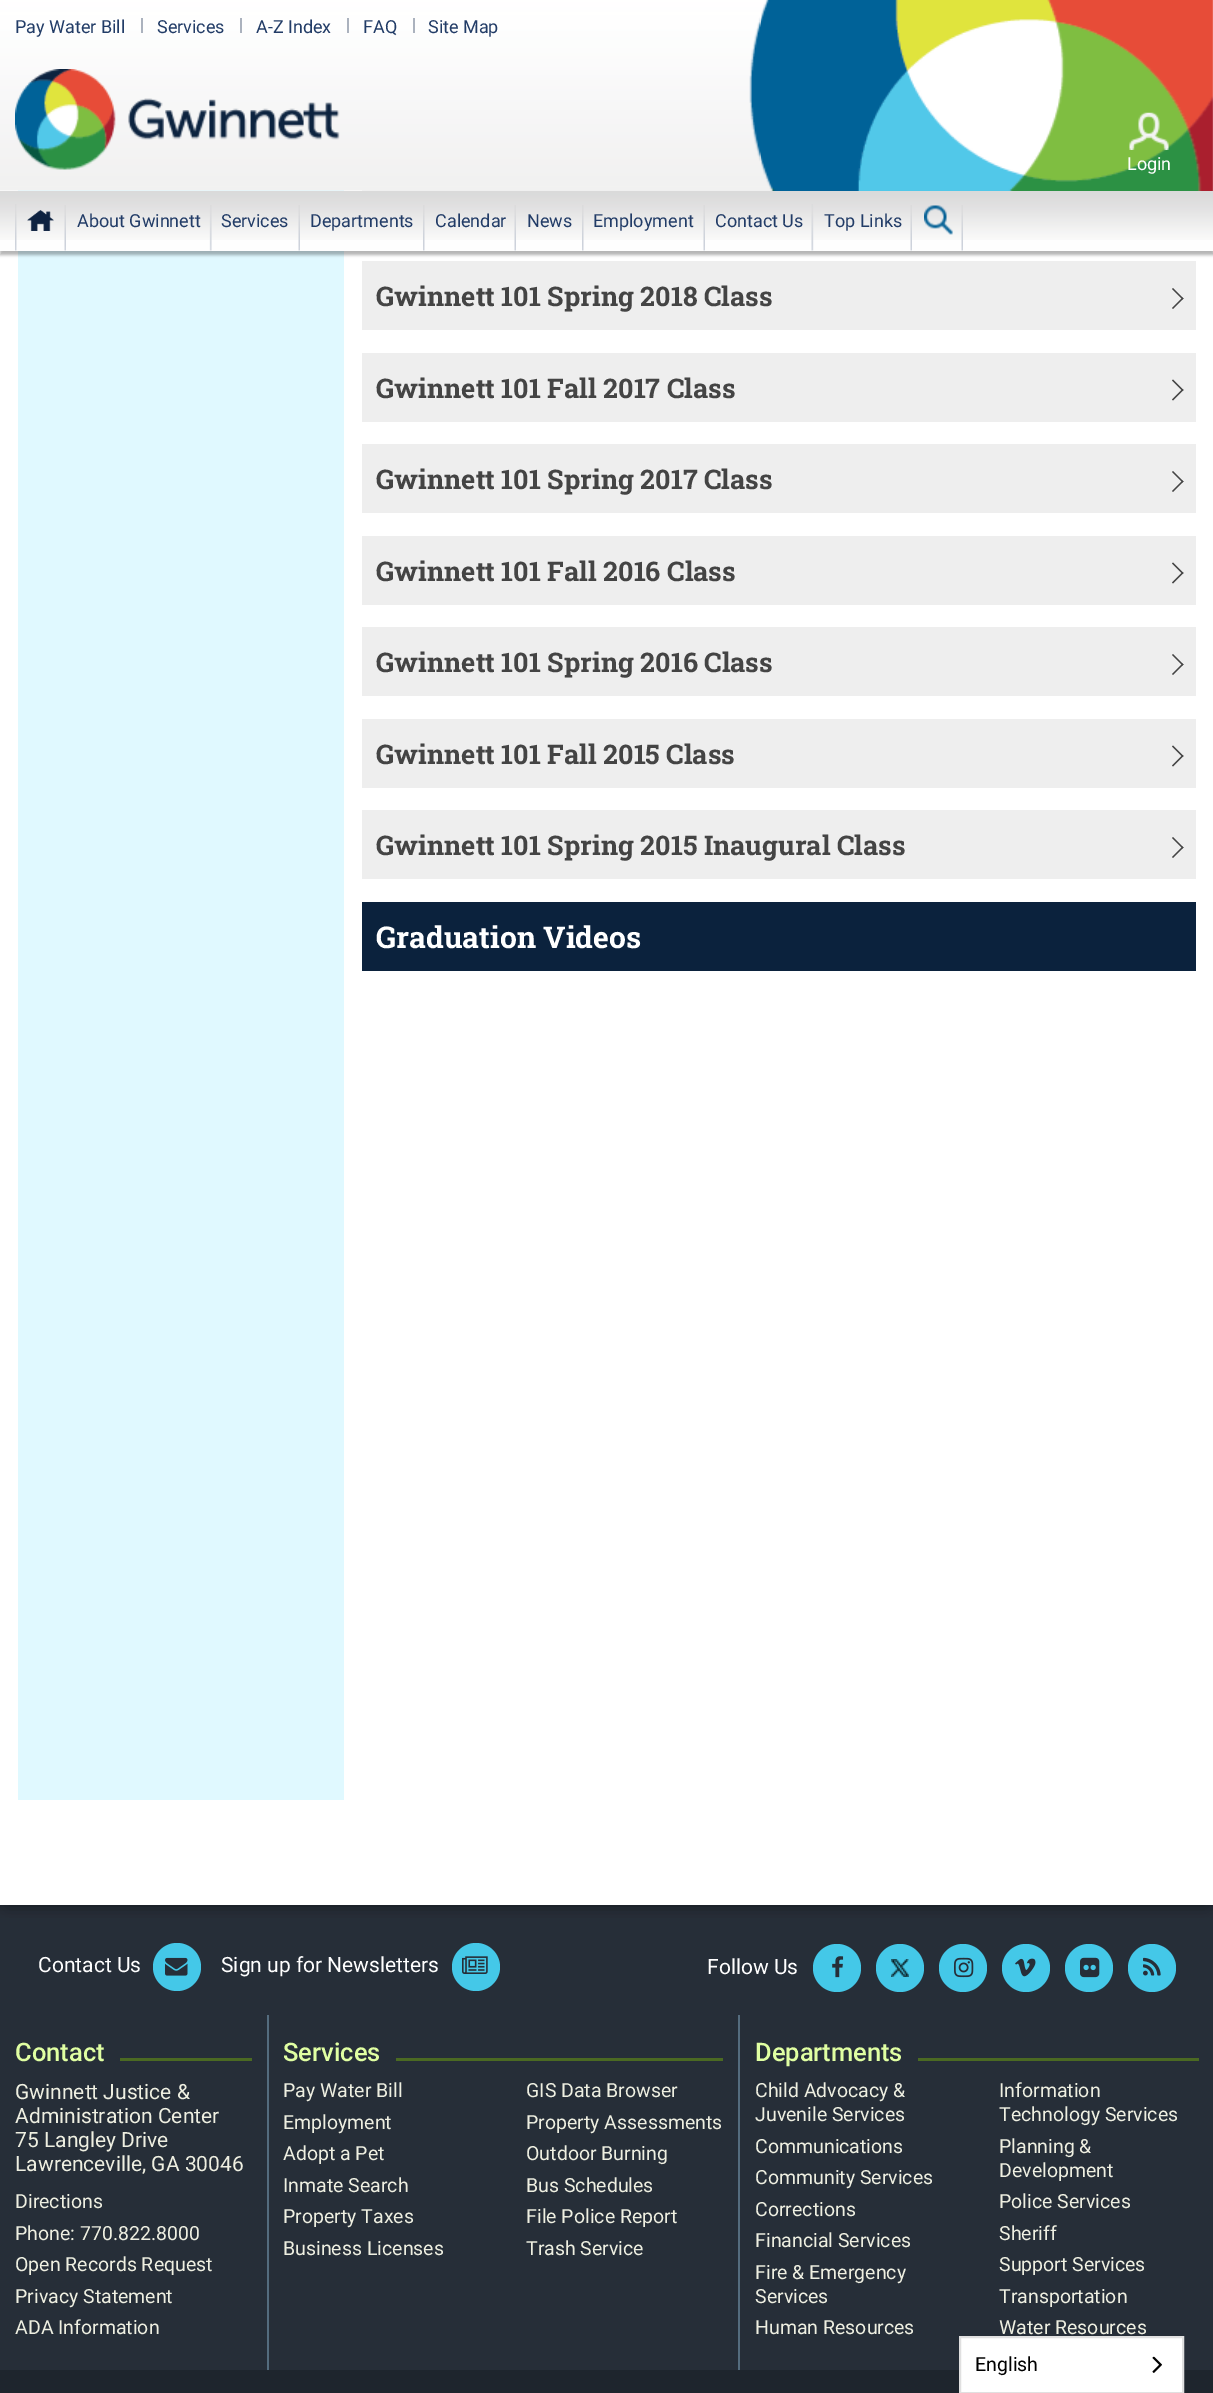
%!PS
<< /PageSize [1213 2393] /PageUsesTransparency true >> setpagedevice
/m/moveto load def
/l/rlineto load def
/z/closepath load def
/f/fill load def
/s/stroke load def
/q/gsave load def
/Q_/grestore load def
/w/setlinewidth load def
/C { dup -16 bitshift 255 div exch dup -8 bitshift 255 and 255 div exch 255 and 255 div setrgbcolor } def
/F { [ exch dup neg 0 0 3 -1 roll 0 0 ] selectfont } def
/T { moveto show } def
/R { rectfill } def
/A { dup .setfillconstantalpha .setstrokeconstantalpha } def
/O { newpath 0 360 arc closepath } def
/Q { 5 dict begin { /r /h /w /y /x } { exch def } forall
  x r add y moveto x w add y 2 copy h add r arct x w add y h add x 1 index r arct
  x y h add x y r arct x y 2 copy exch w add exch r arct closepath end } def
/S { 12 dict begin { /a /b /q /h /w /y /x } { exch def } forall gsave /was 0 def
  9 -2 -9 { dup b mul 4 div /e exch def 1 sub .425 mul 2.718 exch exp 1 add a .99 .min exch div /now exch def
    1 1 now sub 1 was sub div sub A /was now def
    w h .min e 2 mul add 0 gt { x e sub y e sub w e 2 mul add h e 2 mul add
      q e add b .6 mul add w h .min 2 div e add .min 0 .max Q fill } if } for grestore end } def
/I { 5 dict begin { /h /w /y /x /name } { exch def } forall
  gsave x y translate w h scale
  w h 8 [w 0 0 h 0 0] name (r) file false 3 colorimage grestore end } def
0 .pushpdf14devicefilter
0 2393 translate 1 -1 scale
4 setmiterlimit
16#262E38 C
0 0 1213 2393 R
16#000000 C
-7 -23 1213 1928 0 7.5 .3 S
8 -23 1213 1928 0 7.5 .3 S
16#FFFFFF C
0 190 1213 1715 R
16#E0F9FF C
18 190 326 1610 R
16#EEEEEE C
362 190 652 1 R
16#000000 C
0 5 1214 250 0 1.5 .3 S
(1.rgb) 0 0 1213 191 I
(2.rgb) 749 0 464 191 I
/Roboto-Regular 18 F
16#223C67 C
(Pay Water Bill) 15 33 T
16#ABB2BE C
141 18 2 15 R
16#223C67 C
(Services) 157 33 T
16#ABB2BE C
240 18 2 15 R
16#223C67 C
(A-Z Index) 256 33 T
16#ABB2BE C
347 18 2 15 R
16#223C67 C
(FAQ) 363 33 T
16#ABB2BE C
413 18 2 15 R
16#223C67 C
(Site Map) 428 33 T
(3.rgb) 15 69 325 101 I
(4.rgb) 1129 112 40 38 I
16#FFFFFF C
(Login) 1127 170 T
16#FEFEFE C
0 240 1213 11 R
(5.rgb) 0 191 1213 49 I
(6.rgb) 15 204 2 47 I
(7.rgb) 64 205 2 46 I
(8.rgb) 27 210 27 21 I
(9.rgb) 209 205 3 46 I
16#223C67 C
(About Gwinnett) 77 227 T
(7.rgb) 298 205 2 46 I
(Services) 221 227 T
(10.rgb) 423 205 2 46 I
(Departments) 310 227 T
(7.rgb) 514 205 2 46 I
(Calendar) 435 227 T
(10.rgb) 582 205 2 46 I
(News) 527 227 T
(7.rgb) 703 205 2 46 I
(Employment) 593 227 T
(11.rgb) 811 204 3 47 I
(Contact Us) 715 227 T
(7.rgb) 910 205 2 46 I
(Top Links) 824 227 T
(7.rgb) 961 205 2 46 I
(12.rgb) 924 205 29 30 I
16#EEEEEE C
362 261 834 69 R
/RobotoSlab-Bold 27 F
16#444444 C
(Gwinnett 101 Spring 2018 Class) 376 306 T
1172 289 m 1 -1 l 10.5 10.5 l -1 1 l z f
1172 308 m 10.5 -10.5 l 1 1 l -10.5 10.5 l z f
16#EEEEEE C
362 353 834 69 R
16#444444 C
(Gwinnett 101 Fall 2017 Class) 376 398 T
1172 380.5 m 1 -1 l 10.5 10.5 l -1 1 l z f
1172 399.5 m 10.5 -10.5 l 1 1 l -10.5 10.5 l z f
16#EEEEEE C
362 444 834 69 R
16#444444 C
(Gwinnett 101 Spring 2017 Class) 376 489 T
1172 472 m 1 -1 l 10.5 10.5 l -1 1 l z f
1172 491 m 10.5 -10.5 l 1 1 l -10.5 10.5 l z f
16#EEEEEE C
362 536 834 69 R
16#444444 C
(Gwinnett 101 Fall 2016 Class) 376 581 T
1172 563.5 m 1 -1 l 10.5 10.5 l -1 1 l z f
1172 582.5 m 10.5 -10.5 l 1 1 l -10.5 10.5 l z f
16#EEEEEE C
362 627 834 69 R
16#444444 C
(Gwinnett 101 Spring 2016 Class) 376 672 T
1172 655 m 1 -1 l 10.5 10.5 l -1 1 l z f
1172 674 m 10.5 -10.5 l 1 1 l -10.5 10.5 l z f
16#EEEEEE C
362 719 834 69 R
16#444444 C
(Gwinnett 101 Fall 2015 Class) 376 764 T
1172 746.5 m 1 -1 l 10.5 10.5 l -1 1 l z f
1172 765.5 m 10.5 -10.5 l 1 1 l -10.5 10.5 l z f
16#EEEEEE C
362 810 834 69 R
16#444444 C
(Gwinnett 101 Spring 2015 Inaugural Class) 376 855 T
1172 838 m 1 -1 l 10.5 10.5 l -1 1 l z f
1172 857 m 10.5 -10.5 l 1 1 l -10.5 10.5 l z f
16#0B223D C
362 902 834 69 R
/RobotoSlab-Bold 30 F
16#FFFFFF C
(Graduation Videos) 376 948 T
/Roboto-Regular 21 F
(Contact Us) 38 1972 T
16#44C8E8 C
177 1967 24 O f
(13.rgb) 165 1957 23 19 I
16#FFFFFF C
(Sign up for Newsletters) 221 1972 T
16#44C8E8 C
476 1967 24 O f
(14.rgb) 462 1956 26 18 I
16#FFFFFF C
(Follow Us) 707 1974 T
16#44C8E8 C
837 1968 24 O f
(15.rgb) 832 1956 12 22 I
900 1968 24 O f
(16.rgb) 891 1959 18 18 I
963 1968 24 O f
(17.rgb) 954 1957 20 21 I
1026 1968 24 O f
(18.rgb) 1015 1958 21 19 I
1089 1968 24 O f
(19.rgb) 1080 1957 20 21 I
1152 1968 24 O f
(20.rgb) 1143 1957 18 19 I
/Roboto-Medium 25.5 F
16#E0FFA2 C
(Contact) 15 2061 T
16#4B6A22 C
120 2058 132 3 R
/Roboto-Regular 21 F
16#EEEFE1 C
(Gwinnett Justice &) 15 2099 T
(Administration Center) 15 2123 T
(75 Langley Drive) 15 2147 T
(Lawrenceville, GA 30046) 15 2171 T
/Roboto-Regular 19.5 F
(Directions) 15 2208 T
(Phone: 770.822.8000) 15 2240 T
(Open Records Request) 15 2271 T
(Privacy Statement) 15 2303 T
(ADA Information) 15 2334 T
16#546C7E C
738 2015 2 355 R
267 2015 2 355 R
/Roboto-Medium 25.5 F
16#E0FFA2 C
(Services) 283 2061 T
16#4B6A22 C
396 2058 327 3 R
/Roboto-Regular 19.5 F
16#EEEFE1 C
(Pay Water Bill) 283 2097 T
(Employment) 283 2129 T
(Adopt a Pet) 283 2160 T
(Inmate Search) 283 2192 T
(Property Taxes) 283 2223 T
(Business Licenses) 283 2255 T
(GIS Data Browser) 526 2097 T
(Property Assessments) 526 2129 T
(Outdoor Burning) 526 2160 T
(Bus Schedules) 526 2192 T
(File Police Report) 526 2223 T
(Trash Service) 526 2255 T
/Roboto-Medium 25.5 F
16#E0FFA2 C
(Departments) 755 2061 T
16#4B6A22 C
918 2058 281 3 R
/Roboto-Regular 19.5 F
16#EEEFE1 C
(Child Advocacy &) 755 2097 T
(Juvenile Services) 755 2121 T
(Communications) 755 2153 T
(Community Services) 755 2184 T
(Corrections) 755 2216 T
(Financial Services) 755 2247 T
(Fire & Emergency) 755 2279 T
(Services) 755 2303 T
(Human Resources) 755 2334 T
(Information) 999 2097 T
(Technology Services) 999 2121 T
(Planning &) 999 2153 T
(Development) 999 2177 T
(Police Services) 999 2208 T
(Sheriff) 999 2240 T
(Support Services) 999 2271 T
(Transportation) 999 2303 T
(Water Resources) 999 2334 T
16#1E252D C
0 2370 1213 23 R
16#FFFFFF C
960 2337 m 223 0 l 0 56 l -223 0 l z q f Q_
16#E0E0E0 C
2 w
s
16#000000 C
(English) 975 2371 T
(21.rgb) 1152 2356 10 17 I
.poppdf14devicefilter showpage
